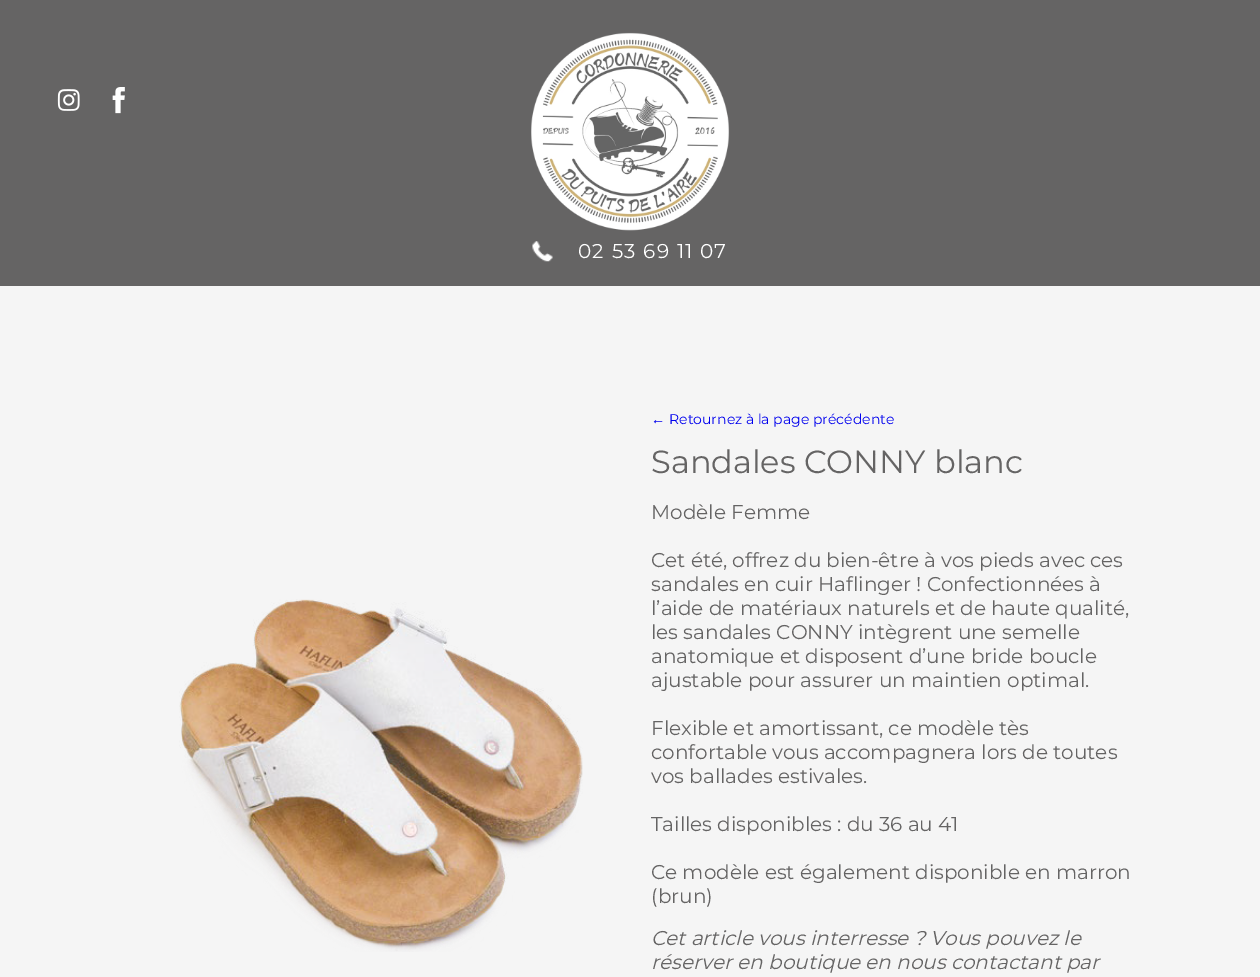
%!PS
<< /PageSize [1260 977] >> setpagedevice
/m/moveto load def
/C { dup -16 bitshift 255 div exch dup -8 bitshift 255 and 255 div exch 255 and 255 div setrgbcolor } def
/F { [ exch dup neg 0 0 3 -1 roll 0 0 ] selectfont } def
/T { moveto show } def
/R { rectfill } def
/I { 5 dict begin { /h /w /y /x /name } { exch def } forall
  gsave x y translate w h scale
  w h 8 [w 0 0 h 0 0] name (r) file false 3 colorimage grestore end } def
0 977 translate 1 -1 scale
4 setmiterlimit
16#656464 C
0 0 1260 977 R
(1.rgb) 57 89 23 22 I
(2.rgb) 112 87 13 27 I
(3.rgb) 531 32 199 199 I
(4.rgb) 532 241 21 21 I
/Montserrat-Regular 20 F
16#FFFFFF C
578 258 m 1.25 0 (02 53 69 11 07) ashow
16#F5F5F5 C
0 286 1260 691 R
(5.rgb) 179 599 404 353 I
/LiberationSans-Regular 14 F
16#0000EE C
(←) 651 424 T
/Montserrat-Regular 14 F
(Retournez à la page précédente) 669 424 T
/Montserrat-Regular 32 F
16#656464 C
(Sandales CONNY blanc) 651 473 T
/Montserrat-Regular 20 F
(Modèle Femme) 651 519 T
(Cet été, offrez du bien-être à vos pieds avec ces) 651 567 T
(sandales en cuir Haflinger ! Confectionnées à) 651 591 T
(l’aide de matériaux naturels et de haute qualité,) 651 615 T
(les sandales CONNY intègrent une semelle) 651 639 T
(anatomique et disposent d’une bride boucle) 651 663 T
(ajustable pour assurer un maintien optimal.) 651 687 T
(Flexible et amortissant, ce modèle tès) 651 735 T
(confortable vous accompagnera lors de toutes) 651 759 T
(vos ballades estivales.) 651 783 T
(Tailles disponibles : du 36 au 41) 651 831 T
(Ce modèle est également disponible en marron) 651 879 T
(\(brun\)) 651 903 T
/Montserrat-Italic 20 F
(Cet article vous interresse ? Vous pouvez le) 651 945 T
(réserver en boutique en nous contactant par) 651 969 T
showpage
